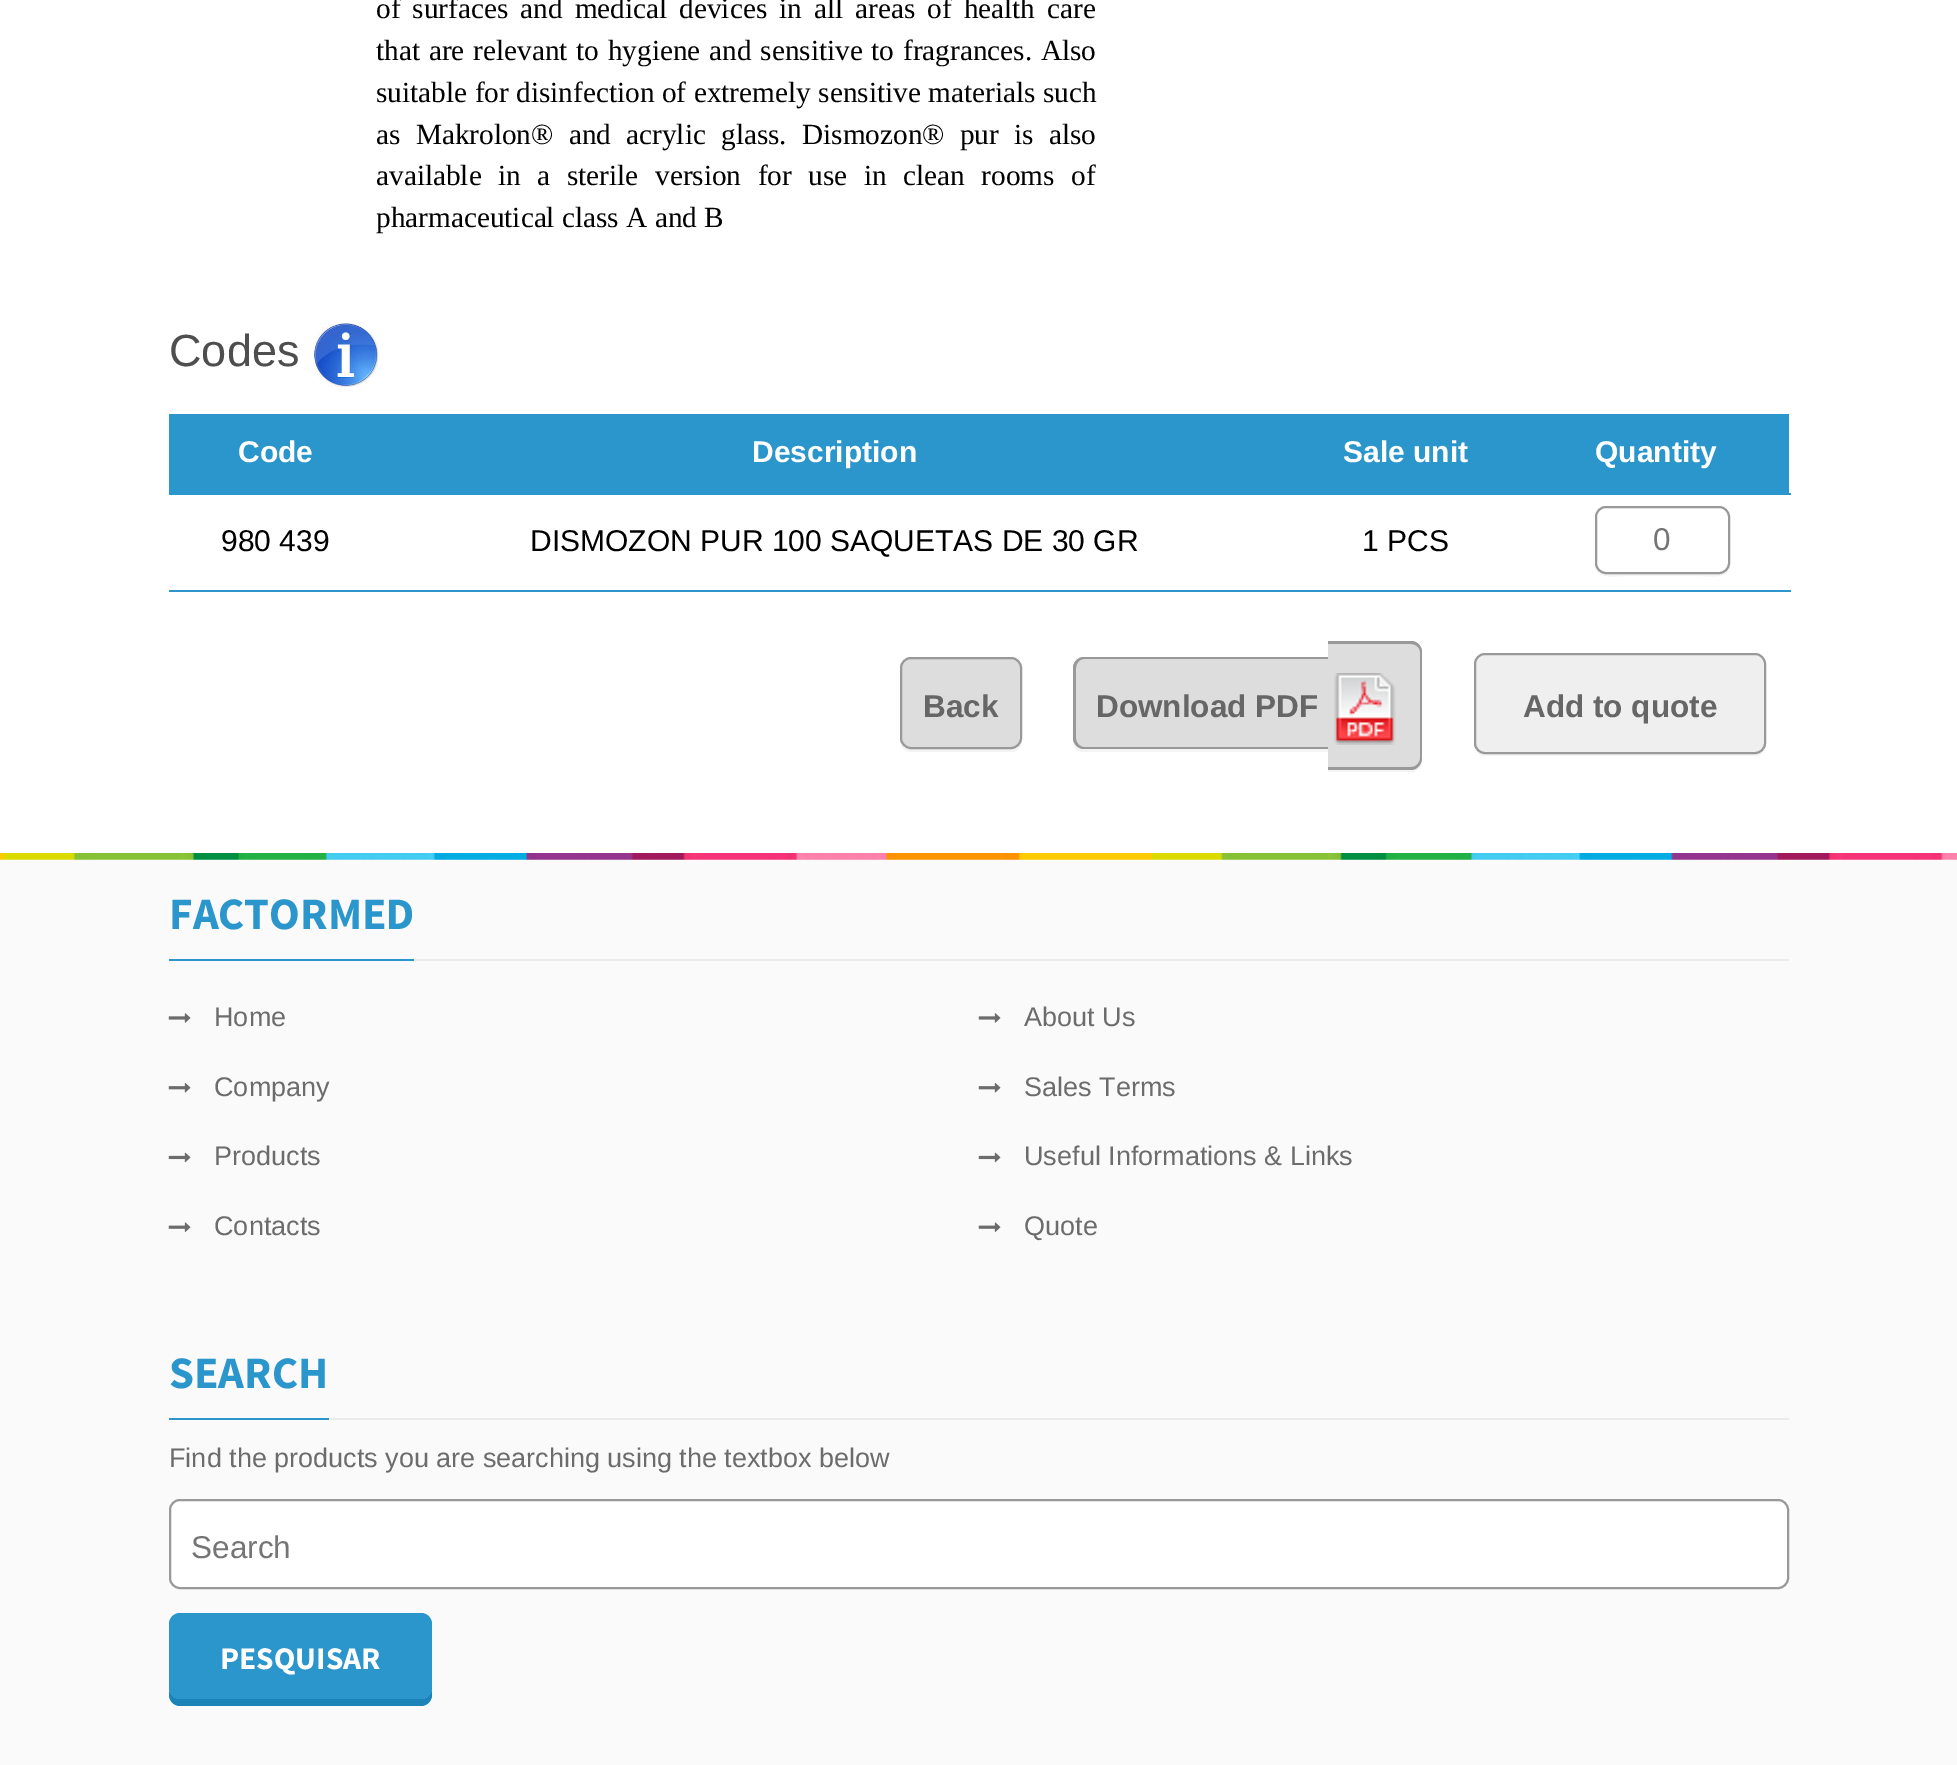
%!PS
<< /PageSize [1957 1765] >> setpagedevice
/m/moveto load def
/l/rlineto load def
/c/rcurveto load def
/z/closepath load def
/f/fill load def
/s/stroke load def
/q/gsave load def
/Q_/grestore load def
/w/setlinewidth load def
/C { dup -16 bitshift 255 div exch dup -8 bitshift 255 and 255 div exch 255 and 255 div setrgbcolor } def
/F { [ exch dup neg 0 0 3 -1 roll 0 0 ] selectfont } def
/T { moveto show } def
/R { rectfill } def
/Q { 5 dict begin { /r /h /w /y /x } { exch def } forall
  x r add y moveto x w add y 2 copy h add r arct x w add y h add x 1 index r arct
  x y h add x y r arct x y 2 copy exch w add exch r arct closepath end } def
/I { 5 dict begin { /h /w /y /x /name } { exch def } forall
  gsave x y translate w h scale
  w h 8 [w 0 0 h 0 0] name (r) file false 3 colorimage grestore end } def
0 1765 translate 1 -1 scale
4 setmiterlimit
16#FFFFFF C
0 0 1957 1765 R
/LiberationSerif-Regular 29.25 F
16#000000 C
376 18 m 4.75 0 32 (of surfaces and medical devices in all areas of health care) widthshow
376 60 m 1.5 0 32 (that are relevant to hygiene and sensitive to fragrances. Also) widthshow
376 102 m .25 0 32 (suitable for disinfection of extremely sensitive materials such) widthshow
376 144 m 8 0 32 (as Makrolon® and acrylic glass. Dismozon® pur is also) widthshow
376 185 m 9.25 0 32 (available in a sterile version for use in clean rooms of) widthshow
(pharmaceutical class A and B) 376 227 T
/LiberationSans-Regular 45 F
16#4E4E4E C
(Codes) 169 366 T
(1.rgb) 313 322 66 65 I
16#2B96CC C
169 414 1620 79 R
/LiberationSans-Bold 30 F
16#FFFFFF C
(Code) 238 462 T
(Description) 752 462 T
(Sale unit) 1343 462 T
16#2B96CC C
169 493 1622 2 R
16#FFFFFF C
(Quantity) 1595 462 T
/LiberationSans-Regular 30 F
16#000000 C
(980 439) 221 551 T
(DISMOZON PUR 100 SAQUETAS DE 30 GR) 530 551 T
(1 PCS) 1362 551 T
16#2B96CC C
169 590 1622 2 R
16#F4F4F4 C
1595 518 m 0 49 l 3 13 22 9 30 9 c 75 0 l 9 0 30 4 30 -11 c -1 5 -6 9 -11 9 c -113 0 l -6 0 -11 -5 -11 -12 c z f
16#FFFFFF C
1596 507 133 66 10 Q q f Q_
16#999999 C
2 w
s
/LiberationSans-Regular 31.5 F
16#757575 C
(0) 1653 550 T
16#F4F4F4 C
900 738 m 0 3 l 0 6 5 11 11 11 c 100 0 l 6 0 11 -5 11 -11 c 0 -71 l -1 -4 l 1 72 l 0 6 -6 11 -12 11 c -99 0 l -6 0 -11 -5 -11 -11 c z f
16#DDDDDD C
901 658 120 90 10 Q q f Q_
16#999999 C
s
/LiberationSans-Bold 31.5 F
16#666666 C
(Back) 923 717 T
16#F4F4F4 C
1073 668 m 0 61 l 0 9 -2 23 11 23 c 244 0 l 0 -93 l 0 90 l -244 0 l -13 0 -11 -14 -11 -23 c z f
16#DDDDDD C
1084 657 m 244 0 l 0 92 l -244 0 l -6 0 -11 -5 -11 -11 c 0 -70 l 0 -6 5 -11 11 -11 c z f
16#999999 C
1084 657 m 244 0 l 0 92 l -244 0 l -6 0 -11 -5 -11 -11 c 0 -70 l 0 -6 5 -11 11 -11 c z 1084 659 m 244 0 l 0 88 l -244 0 l -4 0 -8 -4 -8 -9 c 0 -70 l 0 -5 4 -9 8 -9 c z eofill
16#666666 C
(Download PDF) 1096 717 T
16#F4F4F4 C
1328 770 m 0 2 l 83 0 l 6 0 11 -5 11 -11 c 0 -3 l 0 6 -5 12 -11 12 c z f
16#DDDDDD C
1328 641 m 83 0 l 6 0 11 5 11 11 c 0 107 l 0 6 -5 11 -11 11 c -83 0 l z f
16#999999 C
1328 641 m 83 0 l 6 0 11 5 11 11 c 0 106 l 0 6 -5 12 -11 12 c -83 0 l z 1328 644 m 83 0 l 5 0 9 4 9 8 c 0 106 l 0 5 -4 9 -9 9 c -83 0 l z eofill
(2.rgb) 1334 673 62 72 I
16#F4F4F4 C
1474 745 m 0 5 4 10 9 11 c 272 0 l 6 0 11 -5 11 -11 c -1 5 -6 9 -11 9 c -270 0 l -5 0 -10 -4 -11 -9 c z f
16#EFEFEF C
1475 654 290 99 10 Q q f Q_
16#999999 C
s
16#666666 C
(Add to quote) 1523 717 T
(3.rgb) 0 853 1957 7 I
16#FAFAFA C
0 860 1957 905 R
16#EBEBEB C
414 959 1375 2 R
16#2B96CC C
169 959 245 2 R
/SourceSansPro-Bold 45 F
(FACTORMED) 169 929 T
(4.rgb) 168 1013 23 10 I
/LiberationSans-Regular 27 F
16#6C6C6C C
(Home) 214 1026 T
(4.rgb) 978 1013 23 10 I
(About Us) 1024 1026 T
(5.rgb) 168 1083 23 10 I
(Company) 214 1096 T
(5.rgb) 978 1083 23 10 I
(Sales Terms) 1024 1096 T
(6.rgb) 168 1152 23 11 I
(Products) 214 1165 T
(6.rgb) 978 1152 23 11 I
(Useful Informations & Links) 1024 1165 T
(7.rgb) 168 1222 23 10 I
(Contacts) 214 1235 T
(7.rgb) 978 1222 23 10 I
(Quote) 1024 1235 T
16#EBEBEB C
329 1418 1460 2 R
16#2B96CC C
169 1418 160 2 R
/SourceSansPro-Bold 45 F
(SEARCH) 169 1388 T
/LiberationSans-Regular 27 F
16#6C6C6C C
(Find the products you are searching using the textbox below) 169 1467 T
16#FFFFFF C
170 1500 1618 88 10 Q q f Q_
16#999999 C
s
/LiberationSans-Regular 31.5 F
16#757575 C
(Search) 191 1558 T
16#1B83B8 C
169 1690 m 0 5 l 0 6 5 11 11 11 c 241 0 l 6 0 11 -5 11 -11 c 0 -7 l 0 6 -5 11 -11 11 c -241 0 l -5 0 -10 -4 -11 -9 c z f
16#2B96CC C
169 1613 263 86 11 Q f
/SourceSansPro-Bold 31.5 F
16#FFFFFF C
(PESQUISAR) 220 1669 T
showpage
